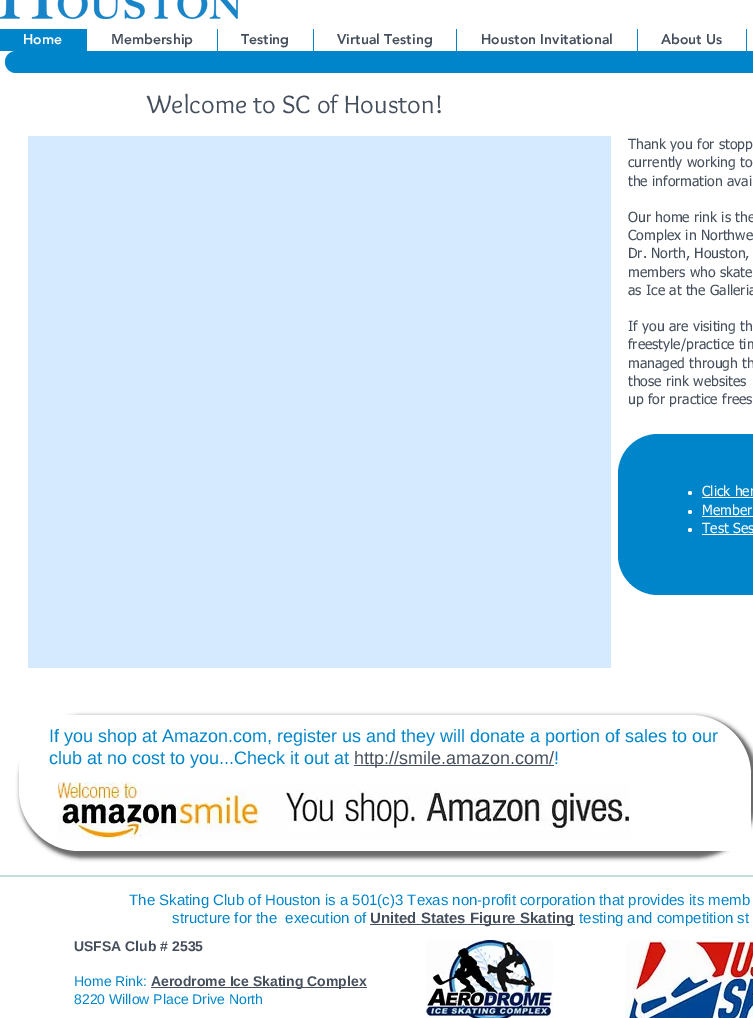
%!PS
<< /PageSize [753 1018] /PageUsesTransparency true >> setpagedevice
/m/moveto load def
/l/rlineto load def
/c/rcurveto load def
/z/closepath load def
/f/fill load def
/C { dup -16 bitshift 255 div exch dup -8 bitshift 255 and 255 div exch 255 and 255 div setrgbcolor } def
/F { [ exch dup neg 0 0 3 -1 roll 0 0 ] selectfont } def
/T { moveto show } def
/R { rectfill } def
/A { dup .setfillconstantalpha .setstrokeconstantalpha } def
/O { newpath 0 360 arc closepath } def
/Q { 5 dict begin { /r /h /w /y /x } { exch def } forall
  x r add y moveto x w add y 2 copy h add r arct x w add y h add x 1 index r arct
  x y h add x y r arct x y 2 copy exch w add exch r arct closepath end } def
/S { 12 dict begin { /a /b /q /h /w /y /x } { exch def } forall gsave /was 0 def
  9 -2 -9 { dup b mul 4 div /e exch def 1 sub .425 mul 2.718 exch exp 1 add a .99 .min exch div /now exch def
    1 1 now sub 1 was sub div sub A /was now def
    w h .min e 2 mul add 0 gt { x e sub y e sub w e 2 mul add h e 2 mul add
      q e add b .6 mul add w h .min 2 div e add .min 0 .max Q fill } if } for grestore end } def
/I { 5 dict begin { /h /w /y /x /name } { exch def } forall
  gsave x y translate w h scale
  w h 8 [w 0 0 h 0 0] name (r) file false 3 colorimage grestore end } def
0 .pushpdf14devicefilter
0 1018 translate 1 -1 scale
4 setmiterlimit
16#FFFFFF C
0 0 753 1018 R
(1.rgb) 0 0 239 19 I
16#0085CA C
0 29 87 22 R
/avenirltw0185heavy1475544-Black 14 F
16#FFFFFF C
(Home) 23 44 T
16#454F5C C
(Membership) 111 44 T
16#0085CA C
217 29 1 22 R
16#454F5C C
(Testing) 241 44 T
16#0085CA C
313 29 1 22 R
16#454F5C C
(Virtual Testing) 337 44 T
16#0085CA C
456 29 1 22 R
16#454F5C C
(Houston Invitational) 481 44 T
16#0085CA C
637 29 1 22 R
16#454F5C C
(About Us) 661 44 T
16#0085CA C
746 29 1 22 R
5 51 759 22 11 Q f
/Overlock-Regular 26 F
16#454F5C C
(Welcome to SC of Houston!) 147 113 T
16#D5EAFF C
28 136 583 532 R
/tahoma-Regular 14 F
16#454F5C C
(Thank you for stopp) 628 149 T
(currently working to) 628 167 T
(the information avai) 628 186 T
(Our home rink is the) 628 222 T
(Complex in Northwe) 628 240 T
(Dr. North, Houston,) 628 258 T
(members who skate) 628 277 T
(as Ice at the Galleria) 628 295 T
(If you are visiting th) 628 331 T
(freestyle/practice tim) 628 349 T
(managed through th) 628 368 T
(those rink websites) 628 386 T
(up for practice frees) 628 404 T
16#0085CA C
618 434 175 161 40 Q f
16#FFFFFF C
690 493 2 O f
(Click her) 702 496 T
702 497 51 1 R
690 512 2 O f
(Member) 702 515 T
702 516 51 1 R
690 530 2 O f
(Test Ses) 702 533 T
702 534 51 1 R
16#000000 C
20 716 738 142 63 2 .6 S
16#FFFFFF C
19 715 m 672 0 l 33 0 60 27 60 60 c 0 76 l -672 0 l -33 0 -60 -27 -60 -60 c z f
/LiberationSans-Regular 18 F
16#0085CA C
(If you shop at Amazon.com, register us and they will donate a portion of sales to our) 49 742 T
(club at no cost to you...Check it out at) 49 764 T
16#454F5C C
354 765 200 1 R
(http://smile.amazon.com/) 354 764 T
16#0085CA C
(!) 554 764 T
(2.rgb) 58 782 572 57 I
16#C3DCDE C
0 875 753 2 R
/LiberationSans-Regular 15 F
16#0085CA C
(The Skating Club of Houston is a 501\(c\)3 Texas non-profit corporation that provides its memb) 129 905 T
(structure for the  execution of) 172 923 T
16#454F5C C
370 924 205 1 R
/LiberationSans-Bold 15 F
(United States Figure Skating) 370 923 T
/LiberationSans-Regular 15 F
16#0085CA C
(testing and competition st) 579 923 T
/LiberationSans-Bold 14 F
16#454F5C C
(USFSA Club # 2535) 74 951 T
/LiberationSans-Regular 14 F
16#0085CA C
(Home Rink:) 74 986 T
16#454F5C C
151 987 216 1 R
/LiberationSans-Bold 14 F
(Aerodrome Ice Skating Complex) 151 986 T
/LiberationSans-Regular 14 F
16#0085CA C
(8220 Willow Place Drive North) 74 1004 T
(3.rgb) 426 940 127 78 I
(4.rgb) 625 940 128 78 I
.poppdf14devicefilter showpage
